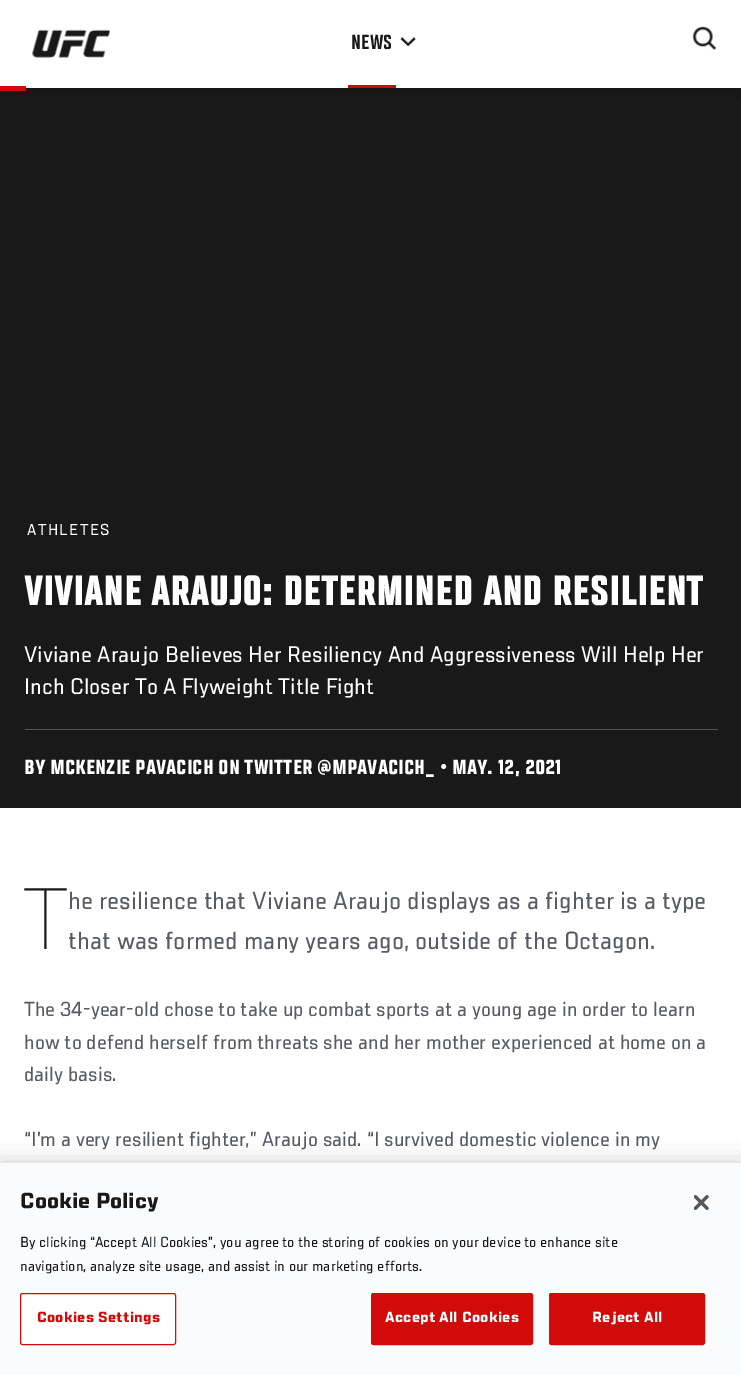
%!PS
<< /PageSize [741 1375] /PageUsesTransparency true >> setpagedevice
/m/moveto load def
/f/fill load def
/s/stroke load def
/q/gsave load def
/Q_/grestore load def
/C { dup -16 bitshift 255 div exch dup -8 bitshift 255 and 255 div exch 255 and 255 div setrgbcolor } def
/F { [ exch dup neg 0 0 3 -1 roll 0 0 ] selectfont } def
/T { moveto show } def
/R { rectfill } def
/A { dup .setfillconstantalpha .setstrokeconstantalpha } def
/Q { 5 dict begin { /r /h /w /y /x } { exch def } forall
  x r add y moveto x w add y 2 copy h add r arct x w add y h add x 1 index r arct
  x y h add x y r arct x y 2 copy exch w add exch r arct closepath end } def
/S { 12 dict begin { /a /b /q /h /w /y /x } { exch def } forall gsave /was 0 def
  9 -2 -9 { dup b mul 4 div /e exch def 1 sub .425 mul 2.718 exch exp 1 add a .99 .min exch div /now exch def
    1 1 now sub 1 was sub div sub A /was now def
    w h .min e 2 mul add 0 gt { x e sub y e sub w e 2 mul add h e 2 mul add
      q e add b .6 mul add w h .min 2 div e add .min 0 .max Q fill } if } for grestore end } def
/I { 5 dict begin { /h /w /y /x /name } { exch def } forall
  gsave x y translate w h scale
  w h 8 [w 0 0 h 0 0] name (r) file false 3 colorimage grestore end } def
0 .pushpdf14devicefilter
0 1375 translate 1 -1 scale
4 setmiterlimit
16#FFFFFF C
0 0 741 1375 R
16#191919 C
0 88 741 720 R
16#000000 C
0 5 741 88 0 9 .2 S
16#FFFFFF C
0 0 741 88 R
(1.rgb) 32 29 78 29 I
/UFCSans-Medium 22.5 F
16#191919 C
(NEWS) 351 49 T
(2.rgb) 400 36 16 11 I
16#D20A0A C
348 85 48 3 R
(3.rgb) 692 26 25 25 I
0 86 26 5 R
/UFCSans-Regular 17.5 F
16#FFFFFF C
27 535 m 1.5 0 (ATHLETES) ashow
/UFCSans-Bold 45 F
24 605 m .75 0 (VIVIANE ARAUJO: DETERMINED AND RESILIENT) ashow
/UFCSans-Regular 25 F
(Viviane Araujo Believes Her Resiliency And Aggressiveness Will Help Her) 24 662 T
(Inch Closer To A Flyweight Title Fight) 24 694 T
16#535353 C
25 729 693 1 R
/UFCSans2-Bold 22.5 F
16#FFFFFF C
(BY MCKENZIE PAVACICH ON TWITTER @MPAVACICH_ • MAY. 12, 2021) 24 774 T
/NotoSans-Thin 85 F
16#191919 C
(T) 24 949 T
/UFCSans-Regular 27.5 F
16#585B63 C
(he resilience that Viviane Araujo displays as a fighter is a type) 68 909 T
(that was formed many years ago, outside of the Octagon.) 68 949 T
/UFCSans-Regular 22.5 F
(The 34-year-old chose to take up combat sports at a young age in order to learn) 24 1016 T
(how to defend herself from threats she and her mother experienced at home on a) 24 1049 T
(daily basis.) 24 1081 T
(“I’m a very resilient fighter,” Araujo said. “I survived domestic violence in my) 24 1146 T
16#000000 C
0 1163 741 212 0 11 .2 S
16#FAFBFD C
0 1163 741 212 R
/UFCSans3-Bold 24 F
16#191919 C
(Cookie Policy) 20 1208 T
/UFCSans-Regular 16.25 F
(By clicking “Accept All Cookies”, you agree to the storing of cookies on your device to enhance site) 20 1247 T
(navigation, analyze site usage, and assist in our marketing efforts.) 20 1271 T
16#FFFFFF C
20.5 1293.5 155 51 2 Q q f Q_
16#D20A0A C
s
/UFCSans3-Bold 16.25 F
37 1322 m .2 0 (Cookies Settings) ashow
371.5 1293.5 161 51 2 Q q f Q_
s
16#FFFFFF C
385 1322 m .2 0 (Accept All Cookies) ashow
16#D20A0A C
549.5 1293.5 155 51 2 Q q f Q_
s
16#FFFFFF C
592 1322 m .2 0 (Reject All) ashow
(4.rgb) 694 1195 15 15 I
.poppdf14devicefilter showpage
